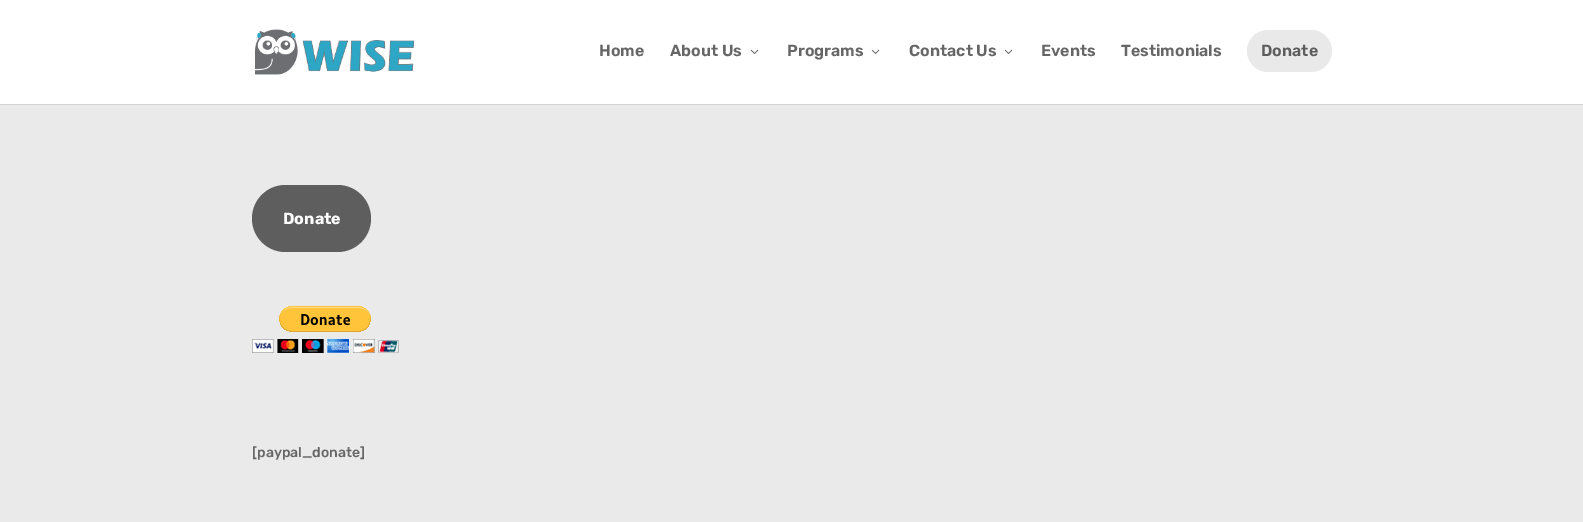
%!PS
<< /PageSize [1583 522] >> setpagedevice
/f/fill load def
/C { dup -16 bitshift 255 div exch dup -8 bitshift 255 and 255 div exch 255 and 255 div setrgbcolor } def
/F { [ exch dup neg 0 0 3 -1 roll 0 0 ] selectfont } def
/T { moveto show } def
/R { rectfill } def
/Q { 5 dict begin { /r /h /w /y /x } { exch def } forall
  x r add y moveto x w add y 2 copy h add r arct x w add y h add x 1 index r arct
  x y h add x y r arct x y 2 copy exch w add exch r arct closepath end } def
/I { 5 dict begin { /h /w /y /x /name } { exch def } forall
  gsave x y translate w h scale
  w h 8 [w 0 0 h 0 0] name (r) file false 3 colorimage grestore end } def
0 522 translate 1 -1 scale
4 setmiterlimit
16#EAEAEA C
0 0 1583 522 R
16#D3D3D3 C
0 104 1583 1 R
16#FFFFFF C
0 0 1583 104 R
(1.rgb) 255 29 159 46 I
/Rubik-SemiBold 16 F
16#666666 C
(Home) 599 56 T
(About Us) 670 56 T
(2.rgb) 750 49 9 5 I
(Programs) 787 56 T
(2.rgb) 871 49 9 5 I
(Contact Us) 909 56 T
(2.rgb) 1004 49 9 5 I
(Events) 1041 56 T
(Testimonials) 1121 56 T
16#E9E9E9 C
1247 30 85 42 21 Q f
16#5D5D5D C
(Donate) 1261 56 T
16#5E5E5E C
252 185 119 67 33.5 Q f
/Rubik-Light 16 F
16#FFFFFF C
(Donate) 283 224 T
(3.rgb) 252 306 147 47 I
/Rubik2-Light 14 F
16#666666 C
([paypal_donate]) 252 457 T
showpage
